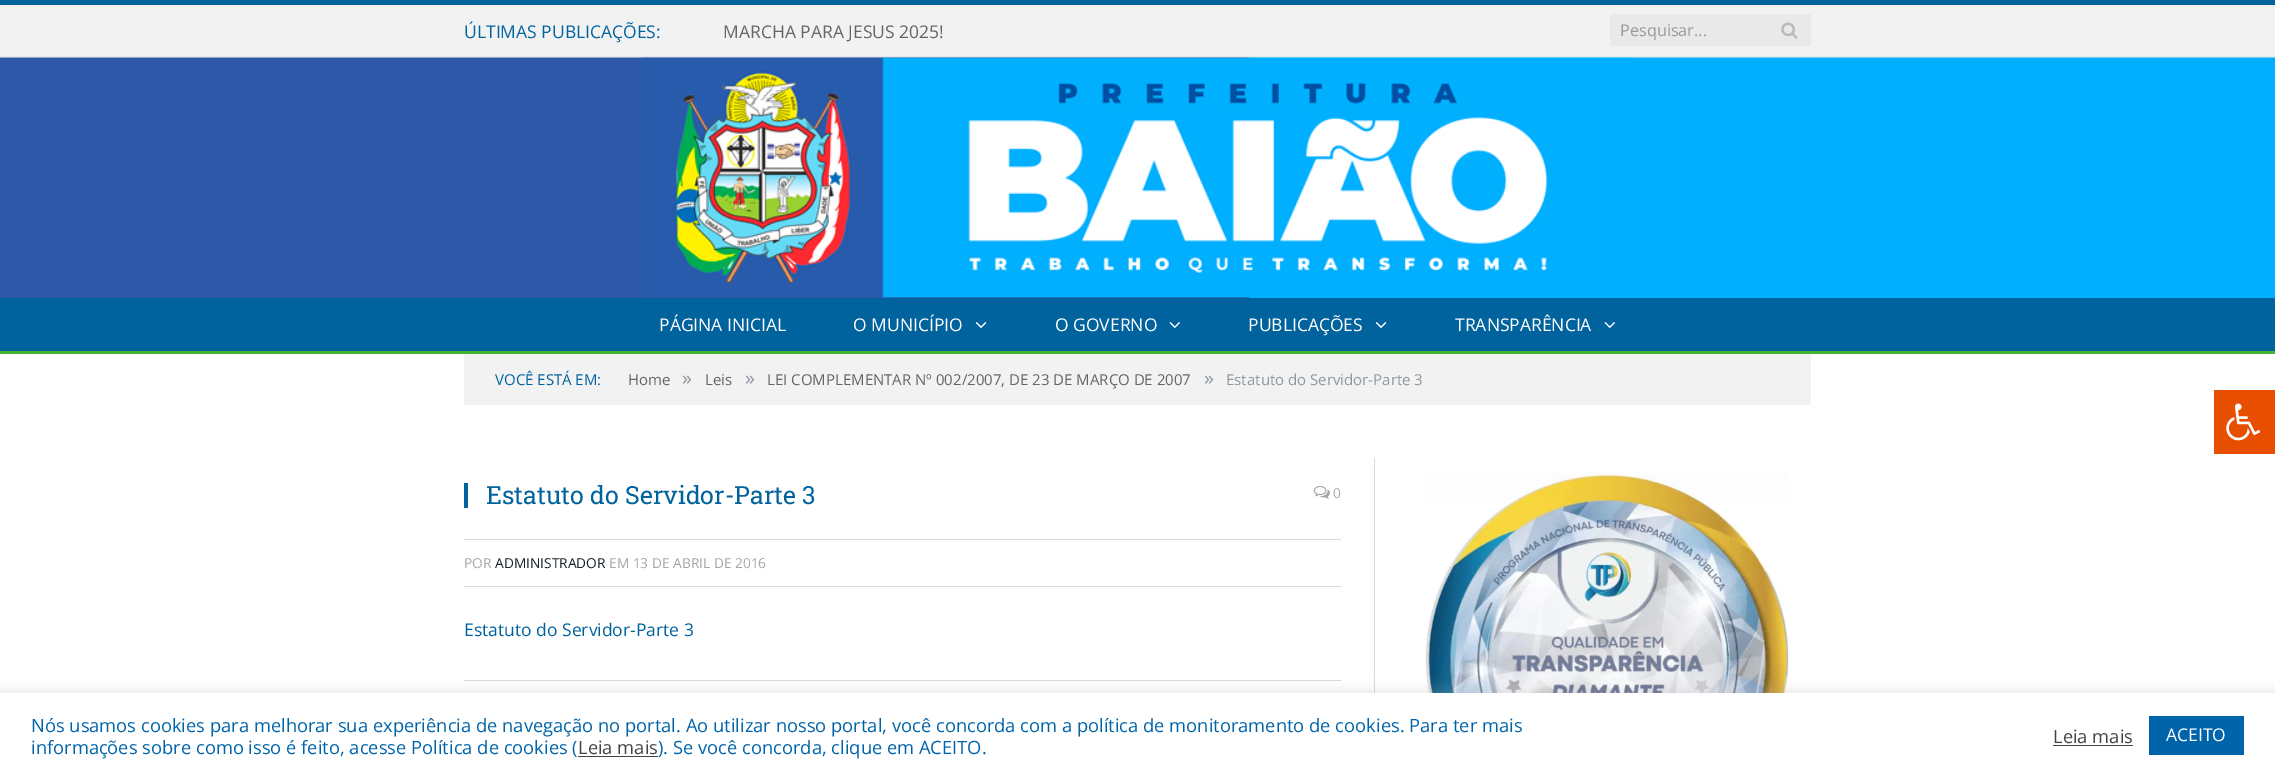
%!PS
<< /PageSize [2275 778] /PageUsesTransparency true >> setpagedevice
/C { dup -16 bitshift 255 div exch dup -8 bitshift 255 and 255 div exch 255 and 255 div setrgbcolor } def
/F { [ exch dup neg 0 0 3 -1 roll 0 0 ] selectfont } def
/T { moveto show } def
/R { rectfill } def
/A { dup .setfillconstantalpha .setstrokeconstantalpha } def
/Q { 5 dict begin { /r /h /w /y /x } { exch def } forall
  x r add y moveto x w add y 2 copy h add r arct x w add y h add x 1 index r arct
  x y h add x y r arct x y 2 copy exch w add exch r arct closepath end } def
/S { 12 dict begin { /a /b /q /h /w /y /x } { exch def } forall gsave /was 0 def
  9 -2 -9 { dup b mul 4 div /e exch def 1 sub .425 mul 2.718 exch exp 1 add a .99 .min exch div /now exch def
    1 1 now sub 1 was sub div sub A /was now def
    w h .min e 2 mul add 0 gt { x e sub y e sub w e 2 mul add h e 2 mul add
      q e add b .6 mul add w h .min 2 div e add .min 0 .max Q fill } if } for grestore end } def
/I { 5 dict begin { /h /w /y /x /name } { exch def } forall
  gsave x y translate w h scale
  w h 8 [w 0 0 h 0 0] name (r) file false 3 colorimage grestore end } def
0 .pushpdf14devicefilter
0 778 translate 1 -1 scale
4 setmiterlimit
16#FFFFFF C
0 0 2275 778 R
16#F2F2F2 C
0 5 2275 53 R
16#01639E C
0 0 2275 5 R
16#E7E7E7 C
0 56 2275 1 R
/OpenSans-Regular 17.5 F
16#01639E C
(ÚLTIMAS PUBLICAÇÕES:) 464 38 T
16#656565 C
(MARCHA PARA JESUS 2025!) 723 38 T
16#E9E9E9 C
1610 14 201 32 R
/OpenSans-Regular 16.25 F
16#999999 C
(Pesquisar...) 1620 36 T
(1.rgb) 1781 22 17 17 I
(2.rgb) 0 57 2275 241 I
(3.rgb) 642 57 991 241 I
16#01639E C
0 298 2275 53 R
16#46B231 C
0 351 2275 3 R
/OpenSans-Regular 17.5 F
16#FFFFFF C
(PÁGINA INICIAL) 659 331 T
(O MUNICÍPIO) 853 331 T
(4.rgb) 975 322 12 6 I
(O GOVERNO) 1055 331 T
(5.rgb) 1169 322 11 6 I
(PUBLICAÇÕES) 1248 331 T
(4.rgb) 1375 322 12 6 I
(TRANSPARÊNCIA) 1455 331 T
(5.rgb) 1604 322 11 6 I
16#F2F2F2 C
464 354 1347 51 R
/OpenSans-Regular 15 F
16#01639E C
(VOCÊ ESTÁ EM:) 495 385 T
16#656565 C
(Home) 628 385 T
/OpenSans-Regular 20 F
16#8D97A1 C
(») 682 385 T
/OpenSans-Regular 15 F
16#656565 C
(Leis) 705 385 T
/OpenSans-Regular 20 F
16#8D97A1 C
(») 745 385 T
/OpenSans-Regular 15 F
16#656565 C
(LEI COMPLEMENTAR Nº 002/2007, DE 23 DE MARÇO DE 2007) 767 385 T
/OpenSans-Regular 20 F
16#8D97A1 C
(») 1204 385 T
/OpenSans-Regular 15 F
(Estatuto do Servidor-Parte 3) 1226 385 T
16#01639E C
464 483 4 25 R
/RobotoSlab-Regular 25 F
(Estatuto do Servidor-Parte 3) 486 504 T
(6.rgb) 1313 485 17 14 I
/OpenSans-Regular 13.75 F
16#A6A6A6 C
(0) 1333 498 T
16#D9D9D9 C
464 539 877 1 R
464 586 877 1 R
16#A6A6A6 C
(POR) 464 568 T
16#19232D C
(ADMINISTRADOR) 495 568 T
16#A6A6A6 C
(EM 13 DE ABRIL DE 2016) 609 568 T
/OpenSans-Regular 17.5 F
16#01639E C
(Estatuto do Servidor-Parte 3) 464 636 T
16#D9D9D9 C
464 680 877 1 R
1374 458 1 235 R
(7.rgb) 1425 471 364 222 I
16#E74E00 C
2214 390 61 64 R
(8.rgb) 2226 403 35 38 I
16#ACABAB C
0 691 2275 87 0 6 .3 S
16#FFFFFF C
0 693 2275 85 R
/OpenSans-Regular 18.33 F
16#0064AB C
(Nós usamos cookies para melhorar sua experiência de navegação no portal. Ao utilizar nosso portal, você concorda com a política de monitoramento de cookies. Para ter mais) 31 732 T
(informações sobre como isso é feito, acesse Política de cookies \() 31 754 T
16#444444 C
(Leia mais) 578 754 T
578 756 80 1 R
16#0064AB C
(\). Se você concorda, clique em ACEITO.) 658 754 T
16#444444 C
(Leia mais) 2053 743 T
2053 745 80 1 R
16#0064AB C
2149 716 95 39 R
/OpenSans-Regular 17.5 F
16#FFFFFF C
(ACEITO) 2166 741 T
.poppdf14devicefilter showpage
